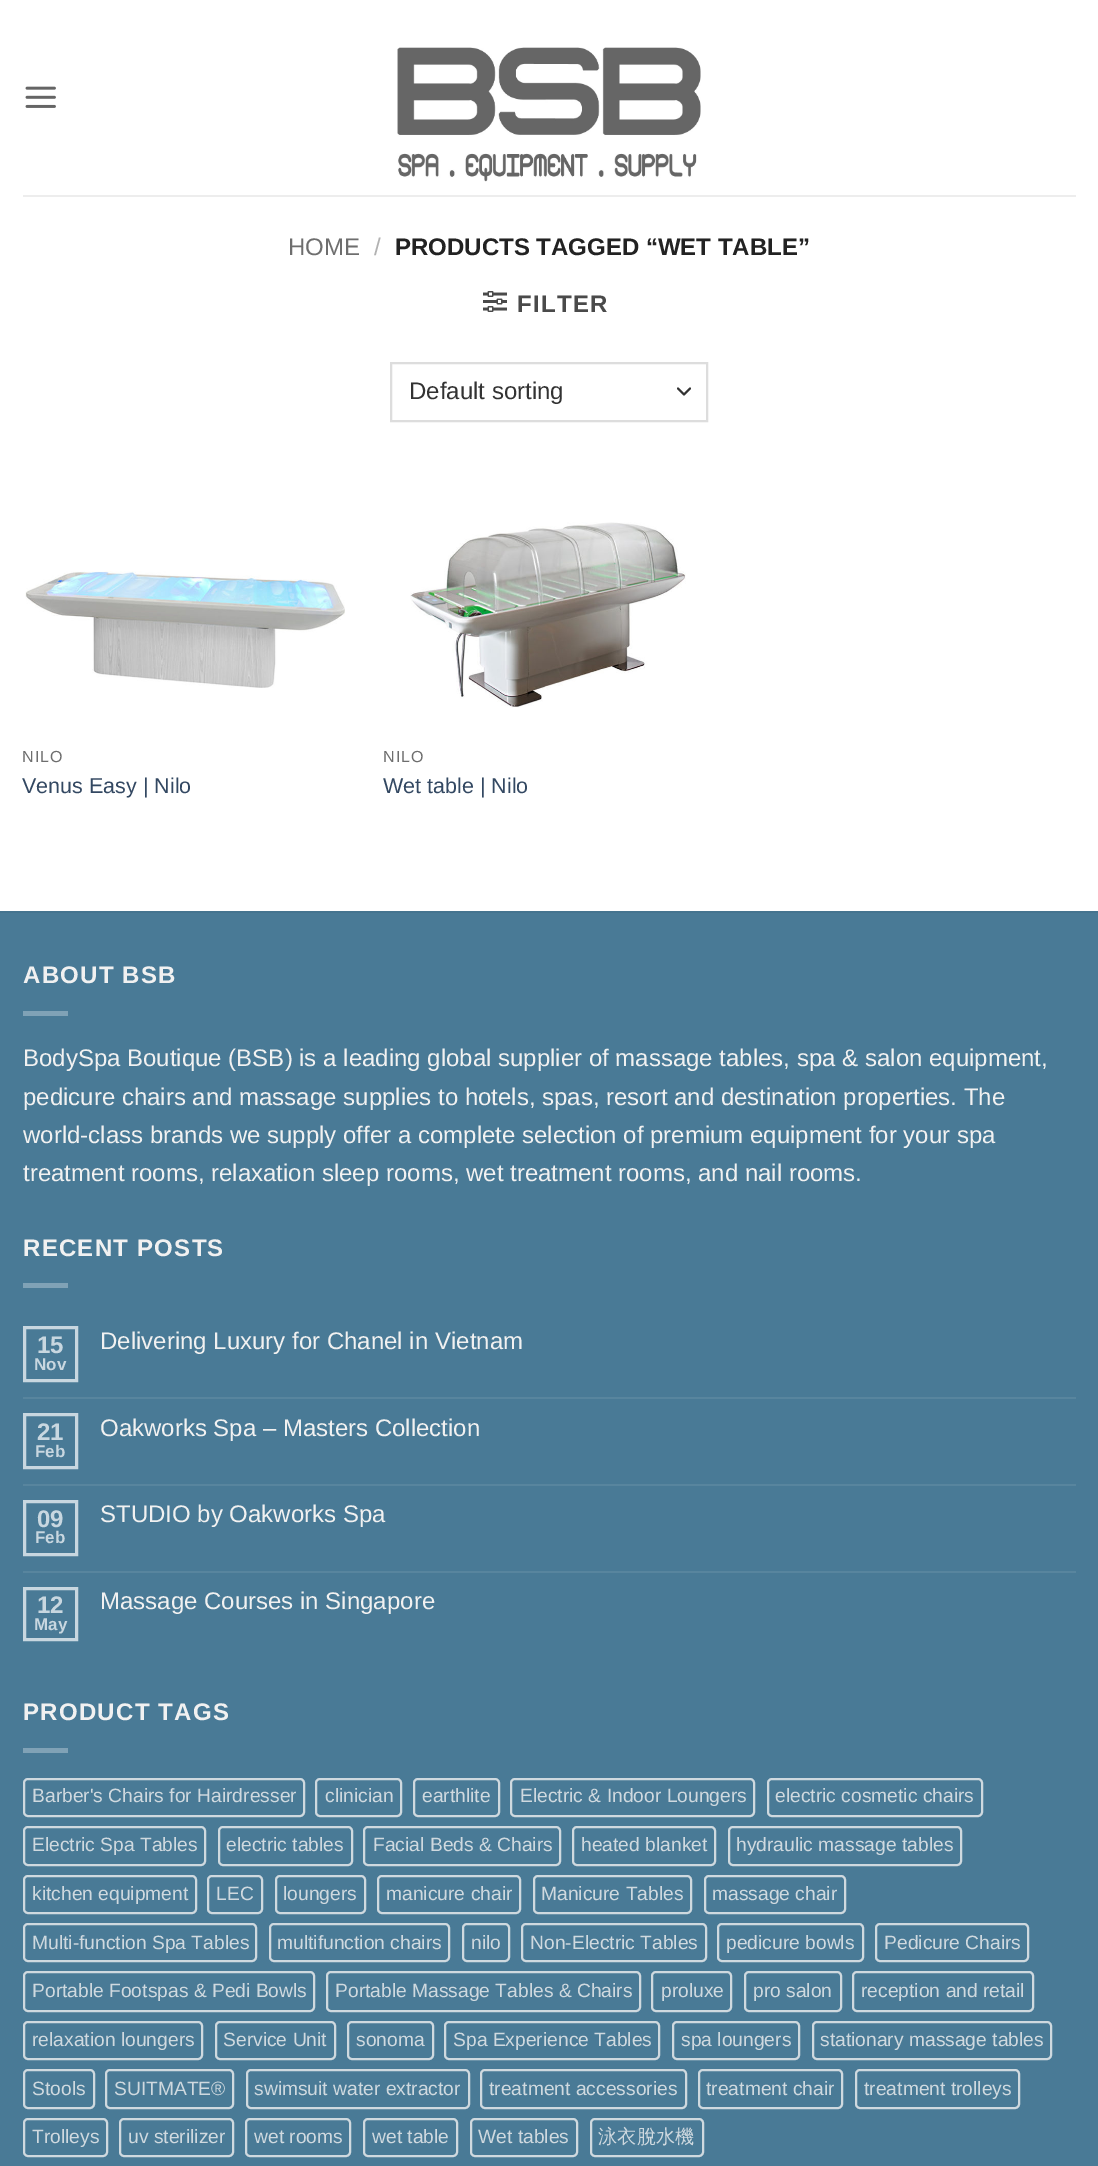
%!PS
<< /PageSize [1098 2166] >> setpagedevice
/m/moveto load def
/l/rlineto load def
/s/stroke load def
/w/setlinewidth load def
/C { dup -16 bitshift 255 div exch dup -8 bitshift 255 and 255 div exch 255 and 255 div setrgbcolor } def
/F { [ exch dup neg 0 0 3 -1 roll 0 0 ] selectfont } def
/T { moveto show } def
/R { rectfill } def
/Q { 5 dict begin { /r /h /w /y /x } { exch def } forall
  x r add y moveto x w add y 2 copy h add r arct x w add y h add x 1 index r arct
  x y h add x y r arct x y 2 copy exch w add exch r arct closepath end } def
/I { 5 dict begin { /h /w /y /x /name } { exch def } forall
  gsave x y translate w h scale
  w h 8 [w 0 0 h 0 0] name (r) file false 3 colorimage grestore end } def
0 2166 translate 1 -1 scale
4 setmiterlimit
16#FFFFFF C
0 0 1098 2166 R
(1.rgb) 25 86 31 22 I
(2.rgb) 397 47 304 135 I
16#EDEDED C
23 195 1053 2 R
/LiberationSans-Regular 24 F
16#6E6E6E C
(HOME) 288 255 T
16#B2B2B2 C
(/) 374 255 T
/LiberationSans-Bold 24 F
16#222222 C
(PRODUCTS TAGGED “WET TABLE”) 395 255 T
(3.rgb) 483 291 24 21 I
16#4A4A4A C
517 312 m 1.25 0 (FILTER) ashow
16#333333 C
2 w
1 setlinecap
1 setlinejoin
678 388.5 m 6 6 l 6 -6 l s
16#DDDDDD C
0 setlinecap
0 setlinejoin
391 363 316 58 rectstroke
/LiberationSans-Regular 24 F
16#333333 C
(Default sorting) 409 399 T
(4.rgb) 25 571 320 117 I
/LiberationSans-Regular 16 F
16#6E6E6E C
22 762 m 1 0 (NILO) ashow
/LiberationSans-Regular 21.5 F
16#334862 C
(Venus Easy | Nilo) 22 793 T
(5.rgb) 410 522 276 186 I
/LiberationSans-Regular 16 F
16#6E6E6E C
383 762 m 1 0 (NILO) ashow
/LiberationSans-Regular 21.5 F
16#334862 C
(Wet table | Nilo) 383 793 T
16#497A96 C
0 913 1098 1253 R
16#45748F C
0 911 1098 2 R
/LiberationSans-Bold 24 F
16#F1F1F1 C
23 983 m 1.25 0 (ABOUT BSB) ashow
16#80A2B6 C
23 1011 45 5 R
/LiberationSans-Regular 24 F
16#F1F1F1 C
(BodySpa Boutique \(BSB\) is a leading global supplier of massage tables, spa & salon equipment,) 23 1066 T
(pedicure chairs and massage supplies to hotels, spas, resort and destination properties. The) 23 1105 T
(world-class brands we supply offer a complete selection of premium equipment for your spa) 23 1143 T
(treatment rooms, relaxation sleep rooms, wet treatment rooms, and nail rooms.) 23 1181 T
/LiberationSans-Bold 24 F
23 1256 m 1.25 0 (RECENT POSTS) ashow
16#80A2B6 C
23 1283 45 5 R
16#C8D7E0 C
3 w
24.5 1327.5 52 53 rectstroke
(15) 37 1353 T
/LiberationSans-Bold 17 F
(Nov) 34 1370 T
/LiberationSans-Regular 24 F
16#F1F1F1 C
(Delivering Luxury for Chanel in Vietnam) 100 1349 T
16#58859E C
23 1397 1053 2 R
16#C8D7E0 C
24.5 1414.5 52 53 rectstroke
/LiberationSans-Bold 24 F
(21) 37 1440 T
/LiberationSans-Bold 17 F
(Feb) 35 1457 T
/LiberationSans-Regular 24 F
16#F1F1F1 C
(Oakworks Spa – Masters Collection) 100 1436 T
16#58859E C
23 1484 1053 2 R
16#C8D7E0 C
24.5 1501.5 52 53 rectstroke
/LiberationSans-Bold 24 F
(09) 37 1527 T
/LiberationSans-Bold 17 F
(Feb) 35 1543 T
/LiberationSans-Regular 24 F
16#F1F1F1 C
(STUDIO by Oakworks Spa) 100 1522 T
16#58859E C
23 1571 1053 2 R
16#C8D7E0 C
24.5 1588.5 52 51 rectstroke
/LiberationSans-Bold 24 F
(12) 37 1613 T
/LiberationSans-Bold 17 F
(May) 34 1630 T
/LiberationSans-Regular 24 F
16#F1F1F1 C
(Massage Courses in Singapore) 100 1609 T
/LiberationSans-Bold 24 F
23 1720 m 1.25 0 (PRODUCT TAGS) ashow
16#80A2B6 C
23 1748 45 5 R
16#CFD9DF C
2 w
24 1779 280 37 4 Q s
/LiberationSans-Regular 19.25 F
(Barber's Chairs for Hairdresser) 32 1802 T
316 1779 85 37 4 Q s
(clinician) 325 1802 T
414 1779 85 37 4 Q s
(earthlite) 422 1802 T
511 1779 243 37 4 Q s
(Electric & Indoor Loungers) 520 1802 T
768 1779 214 37 4 Q s
(electric cosmetic chairs) 775 1802 T
24 1827 181 38 4 Q s
(Electric Spa Tables) 32 1851 T
219 1827 133 38 4 Q s
(electric tables) 226 1851 T
364 1827 196 38 4 Q s
(Facial Beds & Chairs) 373 1851 T
573 1827 142 38 4 Q s
(heated blanket) 581 1851 T
729 1827 232 38 4 Q s
(hydraulic massage tables) 736 1851 T
24 1876 172 37 4 Q s
(kitchen equipment) 32 1900 T
208 1876 54 37 4 Q s
(LEC) 216 1900 T
276 1876 89 37 4 Q s
(loungers) 283 1900 T
378 1876 142 37 4 Q s
(manicure chair) 386 1900 T
534 1876 157 37 4 Q s
(Manicure Tables) 541 1900 T
705 1876 140 37 4 Q s
(massage chair) 712 1900 T
24 1924 232 37 4 Q s
(Multi-function Spa Tables) 32 1949 T
270 1924 179 37 4 Q s
(multifunction chairs) 277 1949 T
463 1924 46 37 4 Q s
(nilo) 471 1949 T
522 1924 184 37 4 Q s
(Non-Electric Tables) 530 1949 T
718 1924 145 37 4 Q s
(pedicure bowls) 726 1949 T
876 1924 152 37 4 Q s
(Pedicure Chairs) 884 1949 T
24 1972 290 39 4 Q s
(Portable Footspas & Pedi Bowls) 32 1997 T
327 1972 313 39 4 Q s
(Portable Massage Tables & Chairs) 335 1997 T
652 1972 79 39 4 Q s
(proluxe) 661 1997 T
745 1972 96 39 4 Q s
(pro salon) 753 1997 T
853 1972 180 39 4 Q s
(reception and retail) 861 1997 T
24 2022 178 37 4 Q s
(relaxation loungers) 32 2046 T
216 2022 119 37 4 Q s
(Service Unit) 223 2046 T
348 2022 85 37 4 Q s
(sonoma) 356 2046 T
445 2022 214 37 4 Q s
(Spa Experience Tables) 453 2046 T
673 2022 126 37 4 Q s
(spa loungers) 681 2046 T
813 2022 238 37 4 Q s
(stationary massage tables) 820 2046 T
24 2070 70 38 4 Q s
(Stools) 32 2095 T
106 2070 127 38 4 Q s
(SUITMATE®) 114 2095 T
247 2070 222 38 4 Q s
(swimsuit water extractor) 254 2095 T
481 2070 205 38 4 Q s
(treatment accessories) 489 2095 T
699 2070 143 38 4 Q s
(treatment chair) 706 2095 T
856 2070 163 38 4 Q s
(treatment trolleys) 864 2095 T
24 2119 83 37 4 Q s
(Trolleys) 32 2143 T
120 2119 113 37 4 Q s
(uv sterilizer) 128 2143 T
246 2119 104 37 4 Q s
(wet rooms) 254 2143 T
364 2119 93 37 4 Q s
(wet table) 372 2143 T
471 2119 106 37 4 Q s
(Wet tables) 478 2143 T
591 2119 112 37 4 Q s
/WenQuanYiZenHei-Medium 19.25 F
(泳衣脫水機) 598 2143 T
showpage
